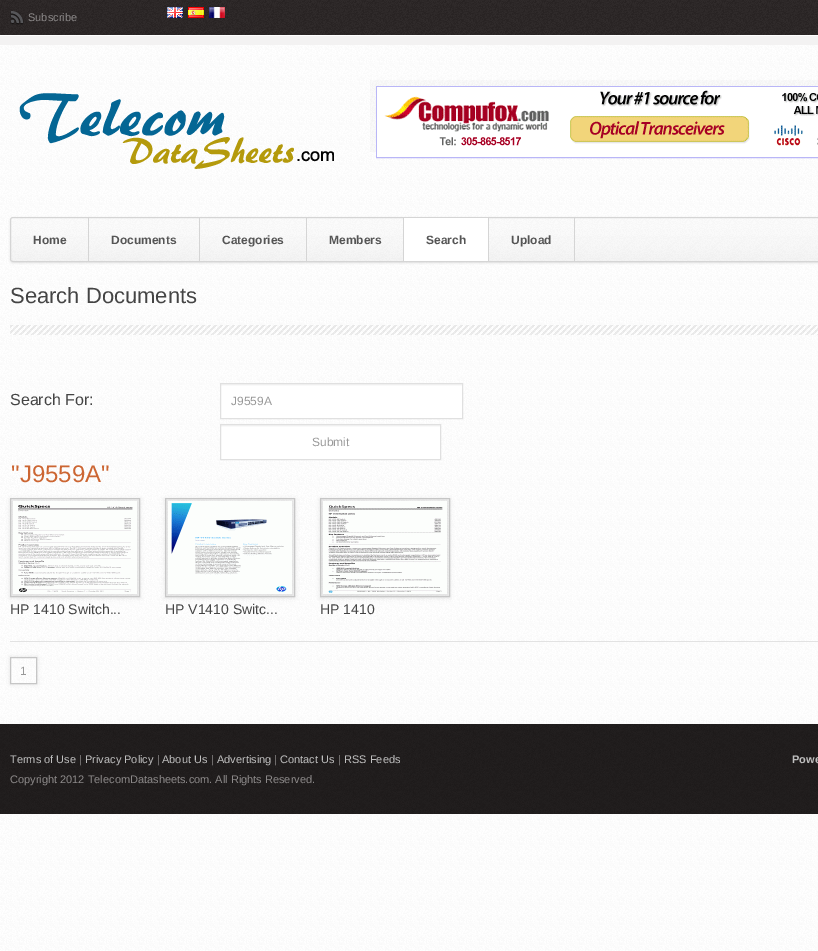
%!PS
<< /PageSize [818 951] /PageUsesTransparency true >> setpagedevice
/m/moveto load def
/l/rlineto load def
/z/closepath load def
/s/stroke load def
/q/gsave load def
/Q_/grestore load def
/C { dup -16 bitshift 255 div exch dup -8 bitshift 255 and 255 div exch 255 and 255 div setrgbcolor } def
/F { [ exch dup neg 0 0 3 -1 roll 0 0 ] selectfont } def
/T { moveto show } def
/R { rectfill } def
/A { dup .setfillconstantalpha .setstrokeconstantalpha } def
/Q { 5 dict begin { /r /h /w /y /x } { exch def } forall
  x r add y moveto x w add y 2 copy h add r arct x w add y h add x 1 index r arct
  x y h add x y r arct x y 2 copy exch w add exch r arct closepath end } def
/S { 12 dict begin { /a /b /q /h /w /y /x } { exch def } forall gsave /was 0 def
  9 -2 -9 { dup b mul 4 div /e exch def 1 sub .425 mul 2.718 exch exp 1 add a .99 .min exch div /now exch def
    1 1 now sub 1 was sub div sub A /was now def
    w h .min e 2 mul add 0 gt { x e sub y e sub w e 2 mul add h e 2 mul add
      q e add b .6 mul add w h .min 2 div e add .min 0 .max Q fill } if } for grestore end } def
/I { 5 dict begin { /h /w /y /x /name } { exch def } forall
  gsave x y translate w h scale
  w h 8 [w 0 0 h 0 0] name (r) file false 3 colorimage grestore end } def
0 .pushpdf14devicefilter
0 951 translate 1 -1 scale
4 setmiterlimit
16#FFFFFF C
0 0 818 951 R
(1.rgb) 0 45 818 906 I
(2.rgb) 0 0 818 45 I
(3.rgb) 10 11 14 14 I
/LiberationSans-Regular 11 F
16#8C8989 C
(Subscribe) 28 21 T
(4.rgb) 167 7 16 11 I
(5.rgb) 188 7 16 11 I
(6.rgb) 209 7 16 11 I
(7.rgb) 19 93 315 76 I
(8.rgb) 370 80 448 72 I
16#B9B6F7 C
376.5 86.5 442 71 rectstroke
(9.rgb) 377 87 441 70 I
16#000000 C
10 218 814 45 3 1 .1 S
(10.rgb) 10 217 808 45 I
16#D5D5D5 C
10.5 217.5 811 44 2.5 Q s
88 218 1 43 R
/LiberationSans-Bold 12 F
16#555555 C
(Home) 33 244 T
16#D5D5D5 C
199 218 1 43 R
16#555555 C
(Documents) 111 244 T
16#D5D5D5 C
306 218 1 43 R
16#555555 C
(Categories) 222 244 T
16#D5D5D5 C
403 218 1 43 R
16#555555 C
(Members) 329 244 T
16#FFFFFF C
404 218 84 43 R
16#D5D5D5 C
488 218 1 43 R
16#555555 C
(Search) 426 244 T
16#D5D5D5 C
574 218 1 43 R
16#555555 C
(Upload) 511 244 T
(11.rgb) 10 325 808 10 I
/LiberationSans-Regular 22 F
16#444444 C
(Search Documents) 10 303 T
/LiberationSans-Regular 16 F
(Search For:) 10 405 T
16#FFFFFF C
221 386 241 32 R
(12.rgb) 221 384 241 2 I
16#E0E0E0 C
220.5 383.5 242 35 rectstroke
/LiberationSans-Regular 12 F
16#999999 C
(J9559A) 231 405 T
16#FFFFFF C
221 427 219 32 R
(13.rgb) 221 425 219 2 I
16#E0E0E0 C
220.5 424.5 220 35 rectstroke
16#999999 C
(Submit) 312 446 T
(14.rgb) 11 460 98 27 I
/LiberationSans-Regular 24 F
16#CC6633 C
("J9559A") 11 482 T
16#000000 C
10 499 130 99 0 2 .1 S
16#C6C6C6 C
10.5 498.5 129 98 rectstroke
(15.rgb) 13 501 124 93 I
/LiberationSans-Regular 14 F
16#444444 C
(HP 1410 Switch...) 10 614 T
16#000000 C
165 499 130 99 0 2 .1 S
16#C6C6C6 C
165.5 498.5 129 98 rectstroke
(16.rgb) 168 501 124 93 I
16#444444 C
(HP V1410 Switc...) 165 614 T
16#000000 C
320 499 130 99 0 2 .1 S
16#C6C6C6 C
320.5 498.5 129 98 rectstroke
(17.rgb) 323 501 124 93 I
16#444444 C
(HP 1410) 320 614 T
16#E2E2E2 C
10 641 808 1 R
q
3 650 m 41 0 l 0 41 l -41 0 l z 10 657 m 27 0 l 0 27 l -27 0 l z eoclip newpath
16#000000 C
10 657 27 27 0 2 .1 S
Q_
16#C6C6C6 C
10.5 657.5 26 26 rectstroke
/LiberationSans-Regular 12 F
16#999999 C
(1) 20 675 T
(18.rgb) 0 724 818 90 I
/LiberationSans-Regular 11 F
16#BFBFBF C
(Terms of Use) 10 763 T
16#8C8989 C
(|) 79 763 T
16#BFBFBF C
(Privacy Policy) 85 763 T
16#8C8989 C
(|) 157 763 T
16#BFBFBF C
(About Us) 162 763 T
16#8C8989 C
(|) 211 763 T
16#BFBFBF C
(Advertising) 217 763 T
16#8C8989 C
(|) 274 763 T
16#BFBFBF C
(Contact Us) 280 763 T
16#8C8989 C
(|) 338 763 T
16#BFBFBF C
(RSS Feeds) 344 763 T
16#8C8989 C
(Copyright 2012 TelecomDatasheets.com. All Rights Reserved.) 10 783 T
/LiberationSans-Bold 11 F
16#BFBFBF C
(Powe) 792 763 T
.poppdf14devicefilter showpage
